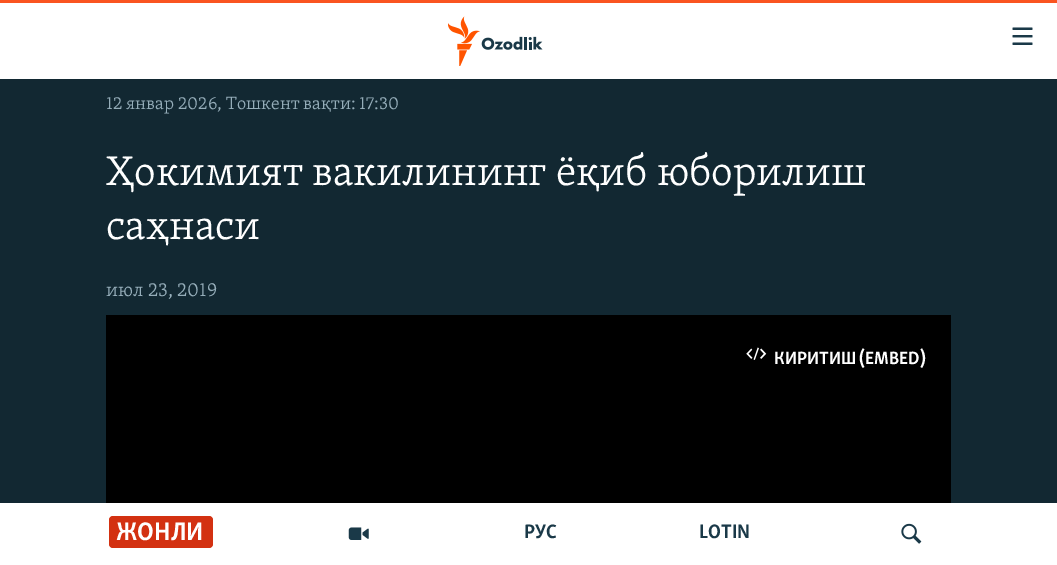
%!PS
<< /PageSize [1057 565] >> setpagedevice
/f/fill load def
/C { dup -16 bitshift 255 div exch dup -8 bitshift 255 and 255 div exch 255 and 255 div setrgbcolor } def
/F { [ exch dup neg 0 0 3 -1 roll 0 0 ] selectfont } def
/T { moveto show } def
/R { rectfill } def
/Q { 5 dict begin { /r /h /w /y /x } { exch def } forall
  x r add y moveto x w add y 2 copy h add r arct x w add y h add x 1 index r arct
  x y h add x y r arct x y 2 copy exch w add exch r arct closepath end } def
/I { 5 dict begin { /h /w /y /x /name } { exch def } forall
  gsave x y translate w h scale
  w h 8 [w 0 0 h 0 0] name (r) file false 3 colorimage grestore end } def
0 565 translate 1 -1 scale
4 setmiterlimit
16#122832 C
0 0 1057 565 R
/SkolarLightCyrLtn-Light 18.25 F
16#95ADB9 C
(12 январ 2026, Тошкент вақти: 17:30) 106 109 T
/SkolarLightCyrLtn-Light 42.75 F
16#FFFFFF C
(Ҳокимият вакилининг ëқиб юборилиш) 106 185 T
(саҳнаси) 106 239 T
/SkolarLightCyrLtn-Light 19.75 F
16#95ADB9 C
(июл 23, 2019) 106 296 T
16#000000 C
106 315 845 188 R
(1.rgb) 746 347 21 13 I
/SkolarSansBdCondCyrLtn-Bold 18.25 F
16#FFFFFF C
(КИРИТИШ \(EMBED\)) 774 364 T
0 3 1057 76 R
16#FA5420 C
0 0 1057 3 R
(2.rgb) 448 16 95 50 I
(3.rgb) 1012 27 21 18 I
16#FFFFFF C
0 503 1057 62 R
16#D33111 C
109 516 104 32 4 Q f
/SkolarSansBdCondCyrLtn-Bold 26 F
16#FFFFFF C
(ЖОНЛИ) 116 540 T
(4.rgb) 348 527 21 13 I
/SkolarSansBdCondCyrLtn-Bold 20 F
16#1A3948 C
(РУС) 524 538 T
(LOTIN) 699 538 T
(5.rgb) 901 523 21 21 I
showpage
